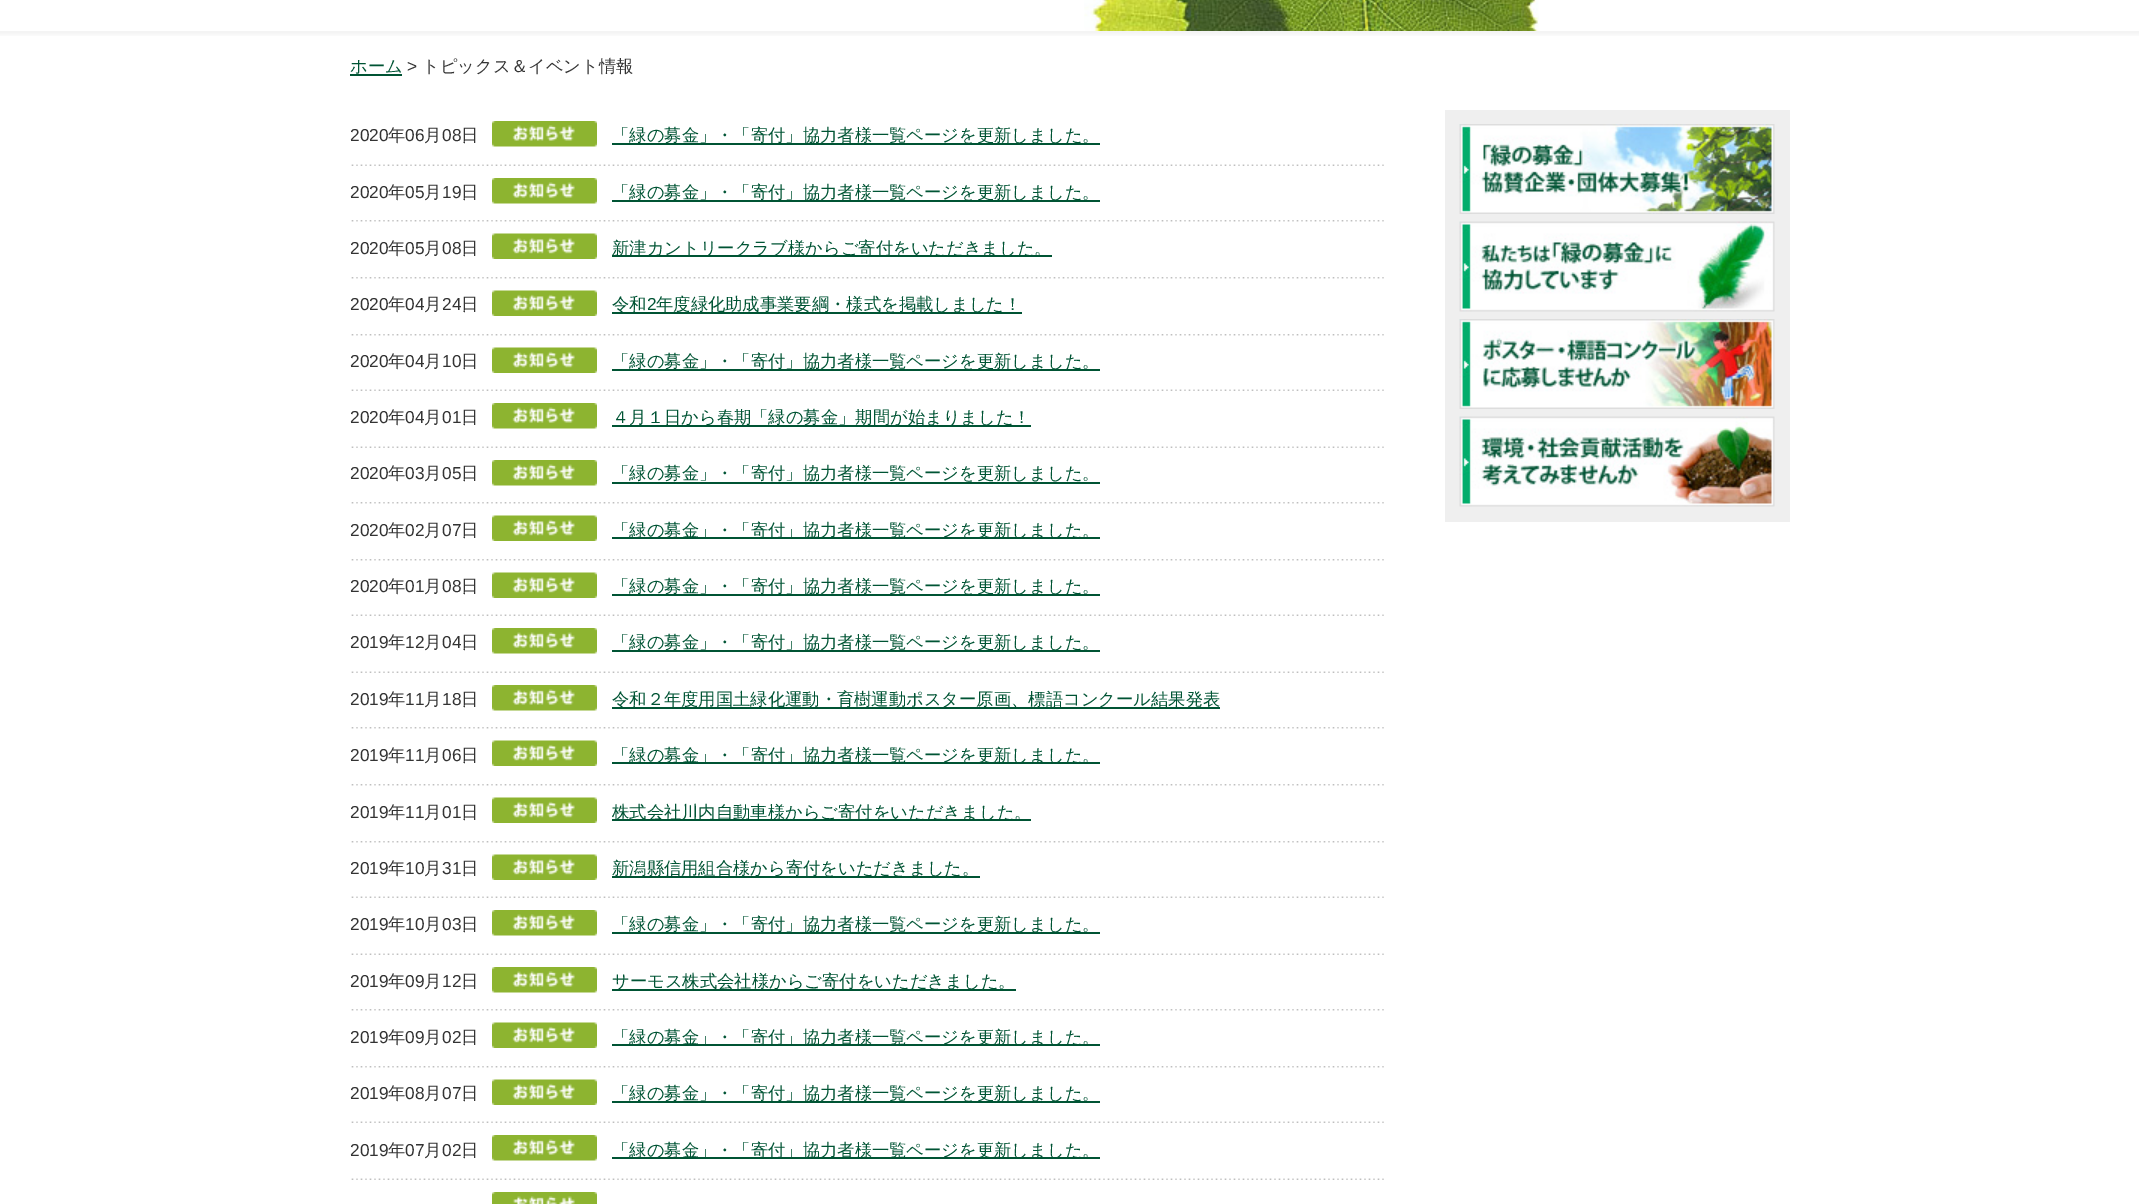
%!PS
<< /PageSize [2139 1204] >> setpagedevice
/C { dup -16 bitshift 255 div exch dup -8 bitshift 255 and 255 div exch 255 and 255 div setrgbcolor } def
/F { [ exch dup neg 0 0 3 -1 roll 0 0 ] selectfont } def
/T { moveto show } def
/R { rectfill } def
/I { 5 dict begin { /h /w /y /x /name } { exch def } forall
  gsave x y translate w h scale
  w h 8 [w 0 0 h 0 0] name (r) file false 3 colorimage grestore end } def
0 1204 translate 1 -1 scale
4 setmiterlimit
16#FFFFFF C
0 0 2139 1204 R
(1.rgb) 0 31 2139 5 I
(2.rgb) 1084 0 455 31 I
/WenQuanYiZenHei-Medium 17.3 F
16#005434 C
(ホーム) 350 72 T
350 74 52 2 R
/LiberationSans-Regular 17.3 F
16#333333 C
(>) 407 72 T
/WenQuanYiZenHei-Medium 17.3 F
(トピックス＆イベント情報) 422 72 T
(3.rgb) 351 164 1033 2 I
/LiberationSans-Regular 17.3 F
(2020) 350 141 T
/WenQuanYiZenHei-Medium 17.3 F
(年) 388 141 T
/LiberationSans-Regular 17.3 F
(06) 405 141 T
/WenQuanYiZenHei-Medium 17.3 F
(月) 424 141 T
/LiberationSans-Regular 17.3 F
(08) 442 141 T
/WenQuanYiZenHei-Medium 17.3 F
(日) 461 141 T
(4.rgb) 492 121 105 26 I
16#005434 C
612 143 488 2 R
(「緑の募金」・「寄付」協力者様一覧ページを更新しました。) 612 141 T
(5.rgb) 351 220 1033 2 I
/LiberationSans-Regular 17.3 F
16#333333 C
(2020) 350 198 T
/WenQuanYiZenHei-Medium 17.3 F
(年) 388 198 T
/LiberationSans-Regular 17.3 F
(05) 405 198 T
/WenQuanYiZenHei-Medium 17.3 F
(月) 424 198 T
/LiberationSans-Regular 17.3 F
(19) 442 198 T
/WenQuanYiZenHei-Medium 17.3 F
(日) 461 198 T
(4.rgb) 492 178 105 26 I
16#005434 C
612 200 488 2 R
(「緑の募金」・「寄付」協力者様一覧ページを更新しました。) 612 198 T
(5.rgb) 351 277 1033 2 I
/LiberationSans-Regular 17.3 F
16#333333 C
(2020) 350 254 T
/WenQuanYiZenHei-Medium 17.3 F
(年) 388 254 T
/LiberationSans-Regular 17.3 F
(05) 405 254 T
/WenQuanYiZenHei-Medium 17.3 F
(月) 424 254 T
/LiberationSans-Regular 17.3 F
(08) 442 254 T
/WenQuanYiZenHei-Medium 17.3 F
(日) 461 254 T
(6.rgb) 492 233 105 26 I
16#005434 C
612 255 440 2 R
(新津カントリークラブ様からご寄付をいただきました。) 612 254 T
(5.rgb) 351 334 1033 2 I
/LiberationSans-Regular 17.3 F
16#333333 C
(2020) 350 310 T
/WenQuanYiZenHei-Medium 17.3 F
(年) 388 310 T
/LiberationSans-Regular 17.3 F
(04) 405 310 T
/WenQuanYiZenHei-Medium 17.3 F
(月) 424 310 T
/LiberationSans-Regular 17.3 F
(24) 442 310 T
/WenQuanYiZenHei-Medium 17.3 F
(日) 461 310 T
(6.rgb) 492 290 105 26 I
16#005434 C
612 312 410 2 R
(令和) 612 310 T
/LiberationSans-Regular 17.3 F
(2) 647 310 T
/WenQuanYiZenHei-Medium 17.3 F
(年度緑化助成事業要綱・様式を掲載しました！) 656 310 T
(3.rgb) 351 389 1033 2 I
/LiberationSans-Regular 17.3 F
16#333333 C
(2020) 350 367 T
/WenQuanYiZenHei-Medium 17.3 F
(年) 388 367 T
/LiberationSans-Regular 17.3 F
(04) 405 367 T
/WenQuanYiZenHei-Medium 17.3 F
(月) 424 367 T
/LiberationSans-Regular 17.3 F
(10) 442 367 T
/WenQuanYiZenHei-Medium 17.3 F
(日) 461 367 T
(6.rgb) 492 347 105 26 I
16#005434 C
612 369 488 2 R
(「緑の募金」・「寄付」協力者様一覧ページを更新しました。) 612 367 T
(3.rgb) 351 446 1033 2 I
/LiberationSans-Regular 17.3 F
16#333333 C
(2020) 350 423 T
/WenQuanYiZenHei-Medium 17.3 F
(年) 388 423 T
/LiberationSans-Regular 17.3 F
(04) 405 423 T
/WenQuanYiZenHei-Medium 17.3 F
(月) 424 423 T
/LiberationSans-Regular 17.3 F
(01) 442 423 T
/WenQuanYiZenHei-Medium 17.3 F
(日) 461 423 T
(4.rgb) 492 403 105 26 I
16#005434 C
612 425 419 2 R
(４月１日から春期「緑の募金」期間が始まりました！) 612 423 T
(5.rgb) 351 502 1033 2 I
/LiberationSans-Regular 17.3 F
16#333333 C
(2020) 350 479 T
/WenQuanYiZenHei-Medium 17.3 F
(年) 388 479 T
/LiberationSans-Regular 17.3 F
(03) 405 479 T
/WenQuanYiZenHei-Medium 17.3 F
(月) 424 479 T
/LiberationSans-Regular 17.3 F
(05) 442 479 T
/WenQuanYiZenHei-Medium 17.3 F
(日) 461 479 T
(4.rgb) 492 460 105 26 I
16#005434 C
(「緑の募金」・「寄付」協力者様一覧ページを更新しました。) 612 479 T
612 482 488 2 R
(5.rgb) 351 559 1033 2 I
/LiberationSans-Regular 17.3 F
16#333333 C
(2020) 350 536 T
/WenQuanYiZenHei-Medium 17.3 F
(年) 388 536 T
/LiberationSans-Regular 17.3 F
(02) 405 536 T
/WenQuanYiZenHei-Medium 17.3 F
(月) 424 536 T
/LiberationSans-Regular 17.3 F
(07) 442 536 T
/WenQuanYiZenHei-Medium 17.3 F
(日) 461 536 T
(6.rgb) 492 515 105 26 I
16#005434 C
612 537 488 2 R
(「緑の募金」・「寄付」協力者様一覧ページを更新しました。) 612 536 T
(3.rgb) 351 614 1033 2 I
/LiberationSans-Regular 17.3 F
16#333333 C
(2020) 350 592 T
/WenQuanYiZenHei-Medium 17.3 F
(年) 388 592 T
/LiberationSans-Regular 17.3 F
(01) 405 592 T
/WenQuanYiZenHei-Medium 17.3 F
(月) 424 592 T
/LiberationSans-Regular 17.3 F
(08) 442 592 T
/WenQuanYiZenHei-Medium 17.3 F
(日) 461 592 T
(6.rgb) 492 572 105 26 I
16#005434 C
612 594 488 2 R
(「緑の募金」・「寄付」協力者様一覧ページを更新しました。) 612 592 T
(3.rgb) 351 671 1033 2 I
/LiberationSans-Regular 17.3 F
16#333333 C
(2019) 350 648 T
/WenQuanYiZenHei-Medium 17.3 F
(年) 388 648 T
/LiberationSans-Regular 17.3 F
(12) 405 648 T
/WenQuanYiZenHei-Medium 17.3 F
(月) 424 648 T
/LiberationSans-Regular 17.3 F
(04) 442 648 T
/WenQuanYiZenHei-Medium 17.3 F
(日) 461 648 T
(4.rgb) 492 628 105 26 I
16#005434 C
612 650 488 2 R
(「緑の募金」・「寄付」協力者様一覧ページを更新しました。) 612 648 T
(5.rgb) 351 727 1033 2 I
/LiberationSans-Regular 17.3 F
16#333333 C
(2019) 350 705 T
/WenQuanYiZenHei-Medium 17.3 F
(年) 388 705 T
/LiberationSans-Regular 17.3 F
(11) 405 705 T
/WenQuanYiZenHei-Medium 17.3 F
(月) 424 705 T
/LiberationSans-Regular 17.3 F
(18) 442 705 T
/WenQuanYiZenHei-Medium 17.3 F
(日) 461 705 T
(4.rgb) 492 685 105 26 I
16#005434 C
612 707 608 2 R
(令和２年度用国土緑化運動・育樹運動ポスター原画、標語コンクール結果発表) 612 705 T
(5.rgb) 351 784 1033 2 I
/LiberationSans-Regular 17.3 F
16#333333 C
(2019) 350 761 T
/WenQuanYiZenHei-Medium 17.3 F
(年) 388 761 T
/LiberationSans-Regular 17.3 F
(11) 405 761 T
/WenQuanYiZenHei-Medium 17.3 F
(月) 424 761 T
/LiberationSans-Regular 17.3 F
(06) 442 761 T
/WenQuanYiZenHei-Medium 17.3 F
(日) 461 761 T
(6.rgb) 492 740 105 26 I
16#005434 C
612 762 488 2 R
(「緑の募金」・「寄付」協力者様一覧ページを更新しました。) 612 761 T
(5.rgb) 351 841 1033 2 I
/LiberationSans-Regular 17.3 F
16#333333 C
(2019) 350 818 T
/WenQuanYiZenHei-Medium 17.3 F
(年) 388 818 T
/LiberationSans-Regular 17.3 F
(11) 405 818 T
/WenQuanYiZenHei-Medium 17.3 F
(月) 424 818 T
/LiberationSans-Regular 17.3 F
(01) 442 818 T
/WenQuanYiZenHei-Medium 17.3 F
(日) 461 818 T
(6.rgb) 492 797 105 26 I
16#005434 C
612 819 419 2 R
(株式会社川内自動車様からご寄付をいただきました。) 612 818 T
(3.rgb) 351 896 1033 2 I
/LiberationSans-Regular 17.3 F
16#333333 C
(2019) 350 874 T
/WenQuanYiZenHei-Medium 17.3 F
(年) 388 874 T
/LiberationSans-Regular 17.3 F
(10) 405 874 T
/WenQuanYiZenHei-Medium 17.3 F
(月) 424 874 T
/LiberationSans-Regular 17.3 F
(31) 442 874 T
/WenQuanYiZenHei-Medium 17.3 F
(日) 461 874 T
(6.rgb) 492 854 105 26 I
16#005434 C
612 876 368 2 R
(新潟縣信用組合様から寄付をいただきました。) 612 874 T
(3.rgb) 351 953 1033 2 I
/LiberationSans-Regular 17.3 F
16#333333 C
(2019) 350 930 T
/WenQuanYiZenHei-Medium 17.3 F
(年) 388 930 T
/LiberationSans-Regular 17.3 F
(10) 405 930 T
/WenQuanYiZenHei-Medium 17.3 F
(月) 424 930 T
/LiberationSans-Regular 17.3 F
(03) 442 930 T
/WenQuanYiZenHei-Medium 17.3 F
(日) 461 930 T
(4.rgb) 492 910 105 26 I
16#005434 C
612 932 488 2 R
(「緑の募金」・「寄付」協力者様一覧ページを更新しました。) 612 930 T
(5.rgb) 351 1009 1033 2 I
/LiberationSans-Regular 17.3 F
16#333333 C
(2019) 350 987 T
/WenQuanYiZenHei-Medium 17.3 F
(年) 388 987 T
/LiberationSans-Regular 17.3 F
(09) 405 987 T
/WenQuanYiZenHei-Medium 17.3 F
(月) 424 987 T
/LiberationSans-Regular 17.3 F
(12) 442 987 T
/WenQuanYiZenHei-Medium 17.3 F
(日) 461 987 T
(4.rgb) 492 967 105 26 I
16#005434 C
612 989 404 2 R
(サーモス株式会社様からご寄付をいただきました。) 612 987 T
(5.rgb) 351 1066 1033 2 I
/LiberationSans-Regular 17.3 F
16#333333 C
(2019) 350 1043 T
/WenQuanYiZenHei-Medium 17.3 F
(年) 388 1043 T
/LiberationSans-Regular 17.3 F
(09) 405 1043 T
/WenQuanYiZenHei-Medium 17.3 F
(月) 424 1043 T
/LiberationSans-Regular 17.3 F
(02) 442 1043 T
/WenQuanYiZenHei-Medium 17.3 F
(日) 461 1043 T
(6.rgb) 492 1022 105 26 I
16#005434 C
612 1044 488 2 R
(「緑の募金」・「寄付」協力者様一覧ページを更新しました。) 612 1043 T
(3.rgb) 351 1121 1033 2 I
/LiberationSans-Regular 17.3 F
16#333333 C
(2019) 350 1099 T
/WenQuanYiZenHei-Medium 17.3 F
(年) 388 1099 T
/LiberationSans-Regular 17.3 F
(08) 405 1099 T
/WenQuanYiZenHei-Medium 17.3 F
(月) 424 1099 T
/LiberationSans-Regular 17.3 F
(07) 442 1099 T
/WenQuanYiZenHei-Medium 17.3 F
(日) 461 1099 T
(6.rgb) 492 1079 105 26 I
16#005434 C
612 1101 488 2 R
(「緑の募金」・「寄付」協力者様一覧ページを更新しました。) 612 1099 T
(3.rgb) 351 1178 1033 2 I
/LiberationSans-Regular 17.3 F
16#333333 C
(2019) 350 1156 T
/WenQuanYiZenHei-Medium 17.3 F
(年) 388 1156 T
/LiberationSans-Regular 17.3 F
(07) 405 1156 T
/WenQuanYiZenHei-Medium 17.3 F
(月) 424 1156 T
/LiberationSans-Regular 17.3 F
(02) 442 1156 T
/WenQuanYiZenHei-Medium 17.3 F
(日) 461 1156 T
(4.rgb) 492 1135 105 26 I
16#005434 C
612 1157 488 2 R
(「緑の募金」・「寄付」協力者様一覧ページを更新しました。) 612 1156 T
(7.rgb) 492 1192 105 12 I
16#EFEFEF C
1445 110 345 412 R
(8.rgb) 1459 124 316 90 I
(9.rgb) 1459 221 316 91 I
(10.rgb) 1459 319 316 90 I
(11.rgb) 1459 416 316 91 I
showpage
